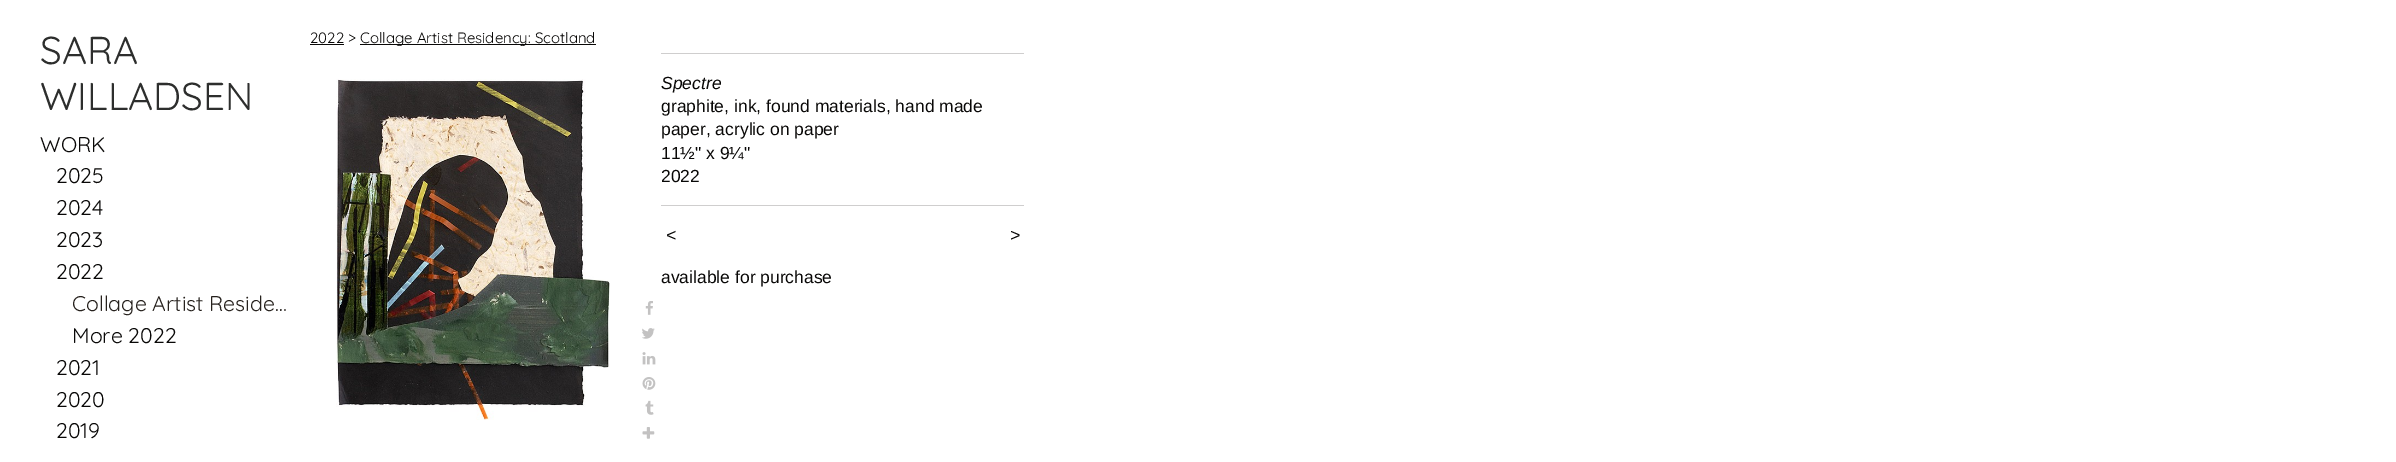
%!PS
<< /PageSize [2396 462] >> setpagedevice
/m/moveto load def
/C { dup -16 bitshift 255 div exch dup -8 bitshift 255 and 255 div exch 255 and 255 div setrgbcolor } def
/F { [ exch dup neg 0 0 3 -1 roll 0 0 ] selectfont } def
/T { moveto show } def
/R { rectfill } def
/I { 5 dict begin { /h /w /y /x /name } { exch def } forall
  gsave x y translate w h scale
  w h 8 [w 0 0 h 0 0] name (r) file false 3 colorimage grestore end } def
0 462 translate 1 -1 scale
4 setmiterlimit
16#FFFFFF C
0 0 2396 462 R
/Quicksand-Light 38.75 F
16#2D2E2D C
(SARA) 40 64 T
(WILLADSEN) 40 110 T
/Quicksand-Light 21.25 F
16#090807 C
(WORK) 40 152 T
(2025) 56 183 T
(2024) 56 215 T
(2023) 56 247 T
(2022) 56 279 T
16#26211D C
(Collage Artist Reside…) 72 311 T
16#090807 C
(More 2022) 72 343 T
(2021) 56 375 T
(2020) 56 407 T
(2019) 56 438 T
/Quicksand-Light 15 F
(2022 >) 310 43 T
310 44 34 1 R
360 44 236 1 R
(Collage Artist Residency: Scotland) 360 43 T
(1.rgb) 336 79 274 341 I
(2.rgb) 645 301 8 14 I
(3.rgb) 642 328 13 11 I
(4.rgb) 642 352 14 13 I
(5.rgb) 642 377 14 13 I
(6.rgb) 645 400 9 15 I
(7.rgb) 642 427 13 12 I
16#CFCECE C
661 53 363 1 R
/LiberationSans-Italic 17.5 F
16#090807 C
(Spectre) 661 89 T
/LiberationSans-Regular 17.5 F
(graphite, ink, found materials, hand made) 661 112 T
(paper, acrylic on paper) 661 135 T
(11½" x 9¼") 661 159 T
(2022) 661 182 T
16#CFCECE C
661 205 363 1 R
/LiberationSans-Italic 17.5 F
16#090807 C
666 241 m 1 0 (<) ashow
1010 241 m 1 0 (>) ashow
/LiberationSans-Regular 17.5 F
(available for purchase) 661 283 T
showpage
